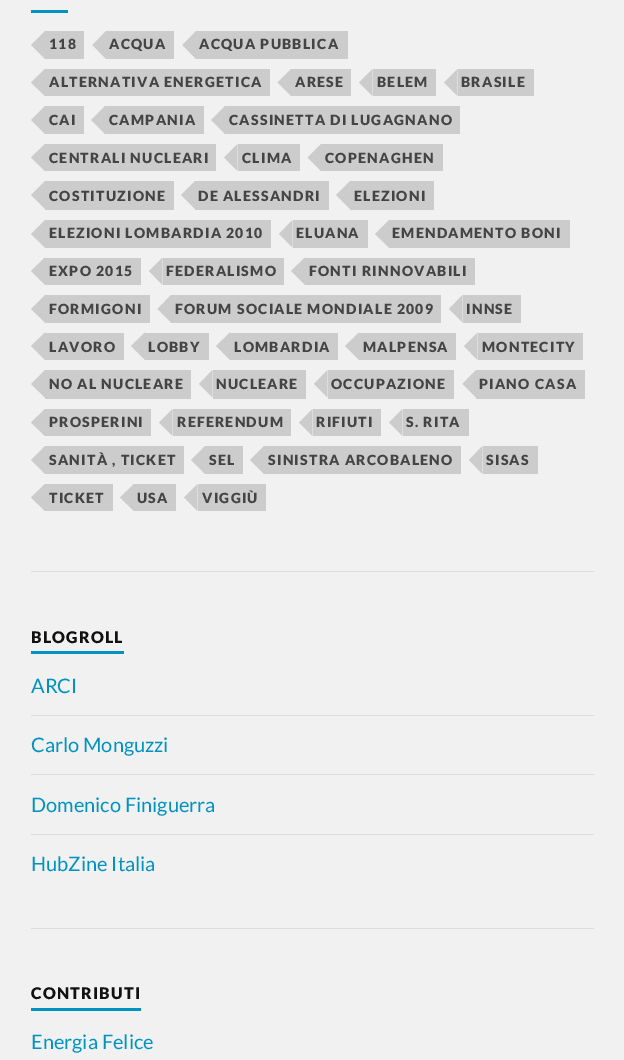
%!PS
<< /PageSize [624 1060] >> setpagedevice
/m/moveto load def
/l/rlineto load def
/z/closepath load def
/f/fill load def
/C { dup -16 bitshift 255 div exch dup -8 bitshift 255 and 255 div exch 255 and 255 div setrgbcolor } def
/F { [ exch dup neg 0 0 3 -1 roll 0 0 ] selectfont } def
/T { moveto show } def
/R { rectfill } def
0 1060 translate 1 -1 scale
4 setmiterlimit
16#F1F1F1 C
0 0 624 1060 R
16#0093C2 C
31 10 37 3 R
16#CCCCCC C
45 31 39 28 R
45 31 m 0 28 l -14 -14 l z f
/Lato-Black 14 F
16#444444 C
49 49 m 1.25 0 (118) ashow
16#CCCCCC C
106 31 68 28 R
106 31 m 0 28 l -13.5 -14 l z f
16#444444 C
109 49 m 1.25 0 (ACQUA) ashow
16#CCCCCC C
196 31 152 28 R
196 31 m 0 28 l -13.5 -14 l z f
16#444444 C
199 49 m 1.25 0 (ACQUA PUBBLICA) ashow
16#CCCCCC C
45 69 225 27 R
45 69 m 0 27 l -14 -13.5 l z f
16#444444 C
49 87 m 1.25 0 (ALTERNATIVA ENERGETICA) ashow
16#CCCCCC C
291 69 60 27 R
291 69 m 0 27 l -13.5 -13.5 l z f
16#444444 C
295 87 m 1.25 0 (ARESE) ashow
16#CCCCCC C
373 69 63 27 R
372.5 69 m 0 27 l -13.5 -13.5 l z f
16#444444 C
377 87 m 1.25 0 (BELEM) ashow
16#CCCCCC C
458 69 76 27 R
457.5 69 m 0 27 l -13.5 -13.5 l z f
16#444444 C
461 87 m 1.25 0 (BRASILE) ashow
16#CCCCCC C
45 106 39 28 R
45 106 m 0 28 l -14 -14 l z f
16#444444 C
49 125 m 1.25 0 (CAI) ashow
16#CCCCCC C
105 106 99 28 R
105 106 m 0 28 l -14 -14 l z f
16#444444 C
109 125 m 1.25 0 (CAMPANIA) ashow
16#CCCCCC C
225 106 235 28 R
225 106 m 0 28 l -14 -14 l z f
16#444444 C
229 125 m 1.25 0 (CASSINETTA DI LUGAGNANO) ashow
16#CCCCCC C
45 144 171 27 R
45 144 m 0 27 l -14 -13.5 l z f
16#444444 C
49 163 m 1.25 0 (CENTRALI NUCLEARI) ashow
16#CCCCCC C
238 144 62 27 R
237.5 144 m 0 27 l -13.5 -13.5 l z f
16#444444 C
242 163 m 1.25 0 (CLIMA) ashow
16#CCCCCC C
321 144 122 27 R
321 144 m 0 27 l -13.5 -13.5 l z f
16#444444 C
325 163 m 1.25 0 (COPENAGHEN) ashow
16#CCCCCC C
45 181 129 29 R
45 181 m 0 28 l -14 -14 l z f
16#444444 C
49 201 m 1.25 0 (COSTITUZIONE) ashow
16#CCCCCC C
195 181 134 29 R
195 181 m 0 28 l -14 -14 l z f
16#444444 C
198 201 m 1.25 0 (DE ALESSANDRI) ashow
16#CCCCCC C
350 181 84 29 R
350 181 m 0 28 l -14 -14 l z f
16#444444 C
354 201 m 1.25 0 (ELEZIONI) ashow
16#CCCCCC C
45 220 226 28 R
45 220 m 0 27.5 l -14 -13.5 l z f
16#444444 C
49 238 m 1.25 0 (ELEZIONI LOMBARDIA 2010) ashow
16#CCCCCC C
293 220 75 28 R
292.5 220 m 0 27.5 l -13.5 -13.5 l z f
16#444444 C
296 238 m 1.25 0 (ELUANA) ashow
16#CCCCCC C
389 220 181 28 R
389 220 m 0 27.5 l -14 -13.5 l z f
16#444444 C
392 238 m 1.25 0 (EMENDAMENTO BONI) ashow
16#CCCCCC C
45 258 96 27 R
45 257.5 m 0 27.5 l -14 -14 l z f
16#444444 C
49 276 m 1.25 0 (EXPO 2015) ashow
16#CCCCCC C
163 258 121 27 R
162.5 257.5 m 0 27.5 l -13.5 -14 l z f
16#444444 C
166 276 m 1.25 0 (FEDERALISMO) ashow
16#CCCCCC C
305 258 170 27 R
305 257.5 m 0 27.5 l -14 -14 l z f
16#444444 C
309 276 m 1.25 0 (FONTI RINNOVABILI) ashow
16#CCCCCC C
45 295 105 28 R
45 295 m 0 27.5 l -14 -13.5 l z f
16#444444 C
49 314 m 1.25 0 (FORMIGONI) ashow
16#CCCCCC C
171 295 270 28 R
171 295 m 0 27.5 l -13.5 -13.5 l z f
16#444444 C
175 314 m 1.25 0 (FORUM SOCIALE MONDIALE 2009) ashow
16#CCCCCC C
463 295 58 28 R
462.5 295 m 0 27.5 l -13.5 -13.5 l z f
16#444444 C
466 314 m 1.25 0 (INNSE) ashow
16#CCCCCC C
45 333 79 27 R
45 332.5 m 0 27.5 l -14 -14 l z f
16#444444 C
49 352 m 1.25 0 (LAVORO) ashow
16#CCCCCC C
145 333 64 27 R
145 332.5 m 0 27.5 l -14 -14 l z f
16#444444 C
148 352 m 1.25 0 (LOBBY) ashow
16#CCCCCC C
230 333 108 27 R
230 332.5 m 0 27.5 l -14 -14 l z f
16#444444 C
234 352 m 1.25 0 (LOMBARDIA) ashow
16#CCCCCC C
359 333 97 27 R
359 332.5 m 0 27.5 l -14 -14 l z f
16#444444 C
363 352 m 1.25 0 (MALPENSA) ashow
16#CCCCCC C
478 333 105 27 R
477.5 332.5 m 0 27.5 l -13.5 -14 l z f
16#444444 C
482 352 m 1.25 0 (MONTECITY) ashow
16#CCCCCC C
45 370 146 29 R
45 370 m 0 27.5 l -14 -13.5 l z f
16#444444 C
49 389 m 1.25 0 (NO AL NUCLEARE) ashow
16#CCCCCC C
213 370 93 29 R
212.5 370 m 0 27.5 l -13.5 -13.5 l z f
16#444444 C
216 389 m 1.25 0 (NUCLEARE) ashow
16#CCCCCC C
328 370 126 29 R
327.5 370 m 0 27.5 l -13.5 -13.5 l z f
16#444444 C
331 389 m 1.25 0 (OCCUPAZIONE) ashow
16#CCCCCC C
476 370 109 29 R
476 370 m 0 27.5 l -13.5 -13.5 l z f
16#444444 C
479 389 m 1.25 0 (PIANO CASA) ashow
16#CCCCCC C
45 409 106 27 R
45 409 m 0 27 l -14 -13.5 l z f
16#444444 C
49 427 m 1.25 0 (PROSPERINI) ashow
16#CCCCCC C
173 409 118 27 R
172.5 409 m 0 27 l -13.5 -13.5 l z f
16#444444 C
177 427 m 1.25 0 (REFERENDUM) ashow
16#CCCCCC C
313 409 68 27 R
312.5 409 m 0 27 l -13.5 -13.5 l z f
16#444444 C
316 427 m 1.25 0 (RIFIUTI) ashow
16#CCCCCC C
403 409 66 27 R
402.5 409 m 0 27 l -13.5 -13.5 l z f
16#444444 C
406 427 m 1.25 0 (S. RITA) ashow
16#CCCCCC C
45 446 139 28 R
45 446 m 0 28 l -14 -14 l z f
16#444444 C
49 465 m 1.25 0 (SANITÀ , TICKET) ashow
16#CCCCCC C
205 446 38 28 R
205 446 m 0 28 l -14 -14 l z f
16#444444 C
209 465 m 1.25 0 (SEL) ashow
16#CCCCCC C
264 446 197 28 R
264 446 m 0 28 l -14 -14 l z f
16#444444 C
268 465 m 1.25 0 (SINISTRA ARCOBALENO) ashow
16#CCCCCC C
483 446 55 28 R
482.5 446 m 0 28 l -13.5 -14 l z f
16#444444 C
486 465 m 1.25 0 (SISAS) ashow
16#CCCCCC C
45 484 68 27 R
45 484 m 0 27 l -14 -13.5 l z f
16#444444 C
49 503 m 1.25 0 (TICKET) ashow
16#CCCCCC C
134 484 42 27 R
134 484 m 0 27 l -14 -13.5 l z f
16#444444 C
137 503 m 1.25 0 (USA) ashow
16#CCCCCC C
198 484 68 27 R
197.5 484 m 0 27 l -13.5 -13.5 l z f
16#444444 C
202 503 m 1.25 0 (VIGGIÙ) ashow
16#DDDDDD C
31 571 563 1 R
16#0093C2 C
31 651 93 3 R
/Lato-Black 16 F
16#111111 C
31 643 m 1.25 0 (BLOGROLL) ashow
16#DDDDDD C
31 715 563 1 R
/Lato-Regular 20 F
16#0093C2 C
(ARCI) 31 693 T
16#DDDDDD C
31 774 563 1 R
16#0093C2 C
(Carlo Monguzzi) 31 752 T
16#DDDDDD C
31 834 563 1 R
16#0093C2 C
(Domenico Finiguerra) 31 812 T
(HubZine Italia) 31 871 T
16#DDDDDD C
31 928 563 1 R
16#0093C2 C
31 1008 110 3 R
/Lato-Black 16 F
16#111111 C
31 999 m 1.25 0 (CONTRIBUTI) ashow
/Lato-Regular 20 F
16#0093C2 C
(Energia Felice) 31 1049 T
showpage
